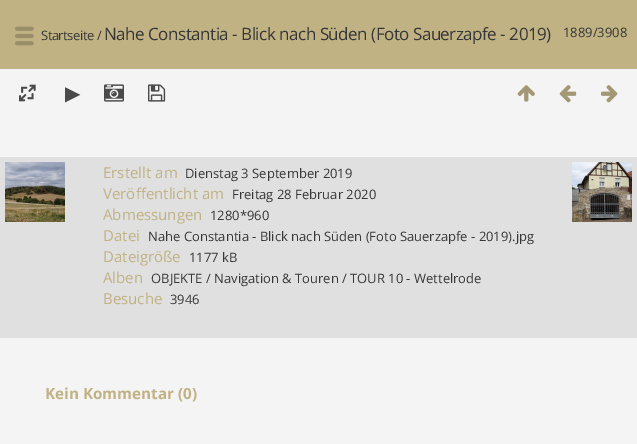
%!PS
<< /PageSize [637 444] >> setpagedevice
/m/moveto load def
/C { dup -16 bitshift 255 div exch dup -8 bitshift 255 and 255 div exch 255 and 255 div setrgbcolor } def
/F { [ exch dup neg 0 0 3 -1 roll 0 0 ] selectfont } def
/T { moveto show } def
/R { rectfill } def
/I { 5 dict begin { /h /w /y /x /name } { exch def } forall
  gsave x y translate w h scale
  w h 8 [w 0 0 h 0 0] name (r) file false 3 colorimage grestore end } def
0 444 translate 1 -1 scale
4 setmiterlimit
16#F4F4F4 C
0 0 637 444 R
16#C0B283 C
0 0 637 69 R
(1.rgb) 15 26 19 20 I
/OpenSans-Regular 13 F
16#373737 C
41 40 m -.5 0 (Startseite /) ashow
/OpenSans-Regular 17 F
104 40 m -.5 0 (Nahe Constantia - Blick nach Süden \(Foto Sauerzapfe - 2019\)) ashow
/OpenSans-Regular 13 F
(1889/3908) 563 37 T
(2.rgb) 19 84 17 18 I
/DejaVuSans-Regular 20 F
16#4A4A4A C
(▶) 65 100 T
(3.rgb) 104 84 20 18 I
(4.rgb) 148 84 18 18 I
(5.rgb) 517 85 18 17 I
(6.rgb) 559 85 18 18 I
(7.rgb) 601 85 17 18 I
16#E0E0E0 C
0 157 637 181 R
(8.rgb) 5 162 60 60 I
(9.rgb) 572 162 60 60 I
/OpenSans-Regular 15 F
16#C0B283 C
(Erstellt am) 103 178 T
/OpenSans-Regular 13 F
16#373737 C
(Dienstag 3 September 2019) 185 178 T
/OpenSans-Regular 15 F
16#C0B283 C
(Veröffentlicht am) 103 199 T
/OpenSans-Regular 13 F
16#373737 C
(Freitag 28 Februar 2020) 232 199 T
/OpenSans-Regular 15 F
16#C0B283 C
(Abmessungen) 103 220 T
/OpenSans-Regular 13 F
16#373737 C
(1280*960) 210 220 T
/OpenSans-Regular 15 F
16#C0B283 C
(Datei) 103 241 T
/OpenSans-Regular 13 F
16#373737 C
(Nahe Constantia - Blick nach Süden \(Foto Sauerzapfe - 2019\).jpg) 148 241 T
/OpenSans-Regular 15 F
16#C0B283 C
(Dateigröße) 103 262 T
/OpenSans-Regular 13 F
16#373737 C
(1177 kB) 189 262 T
/OpenSans-Regular 15 F
16#C0B283 C
(Alben) 103 283 T
/OpenSans-Regular 13 F
16#373737 C
(OBJEKTE / Navigation & Touren / TOUR 10 - Wettelrode) 151 283 T
/OpenSans-Regular 15 F
16#C0B283 C
(Besuche) 103 304 T
/OpenSans-Regular 13 F
16#373737 C
(3946) 170 304 T
/OpenSans-Bold 15.25 F
16#C0B283 C
(Kein Kommentar \(0\)) 45 399 T
showpage
